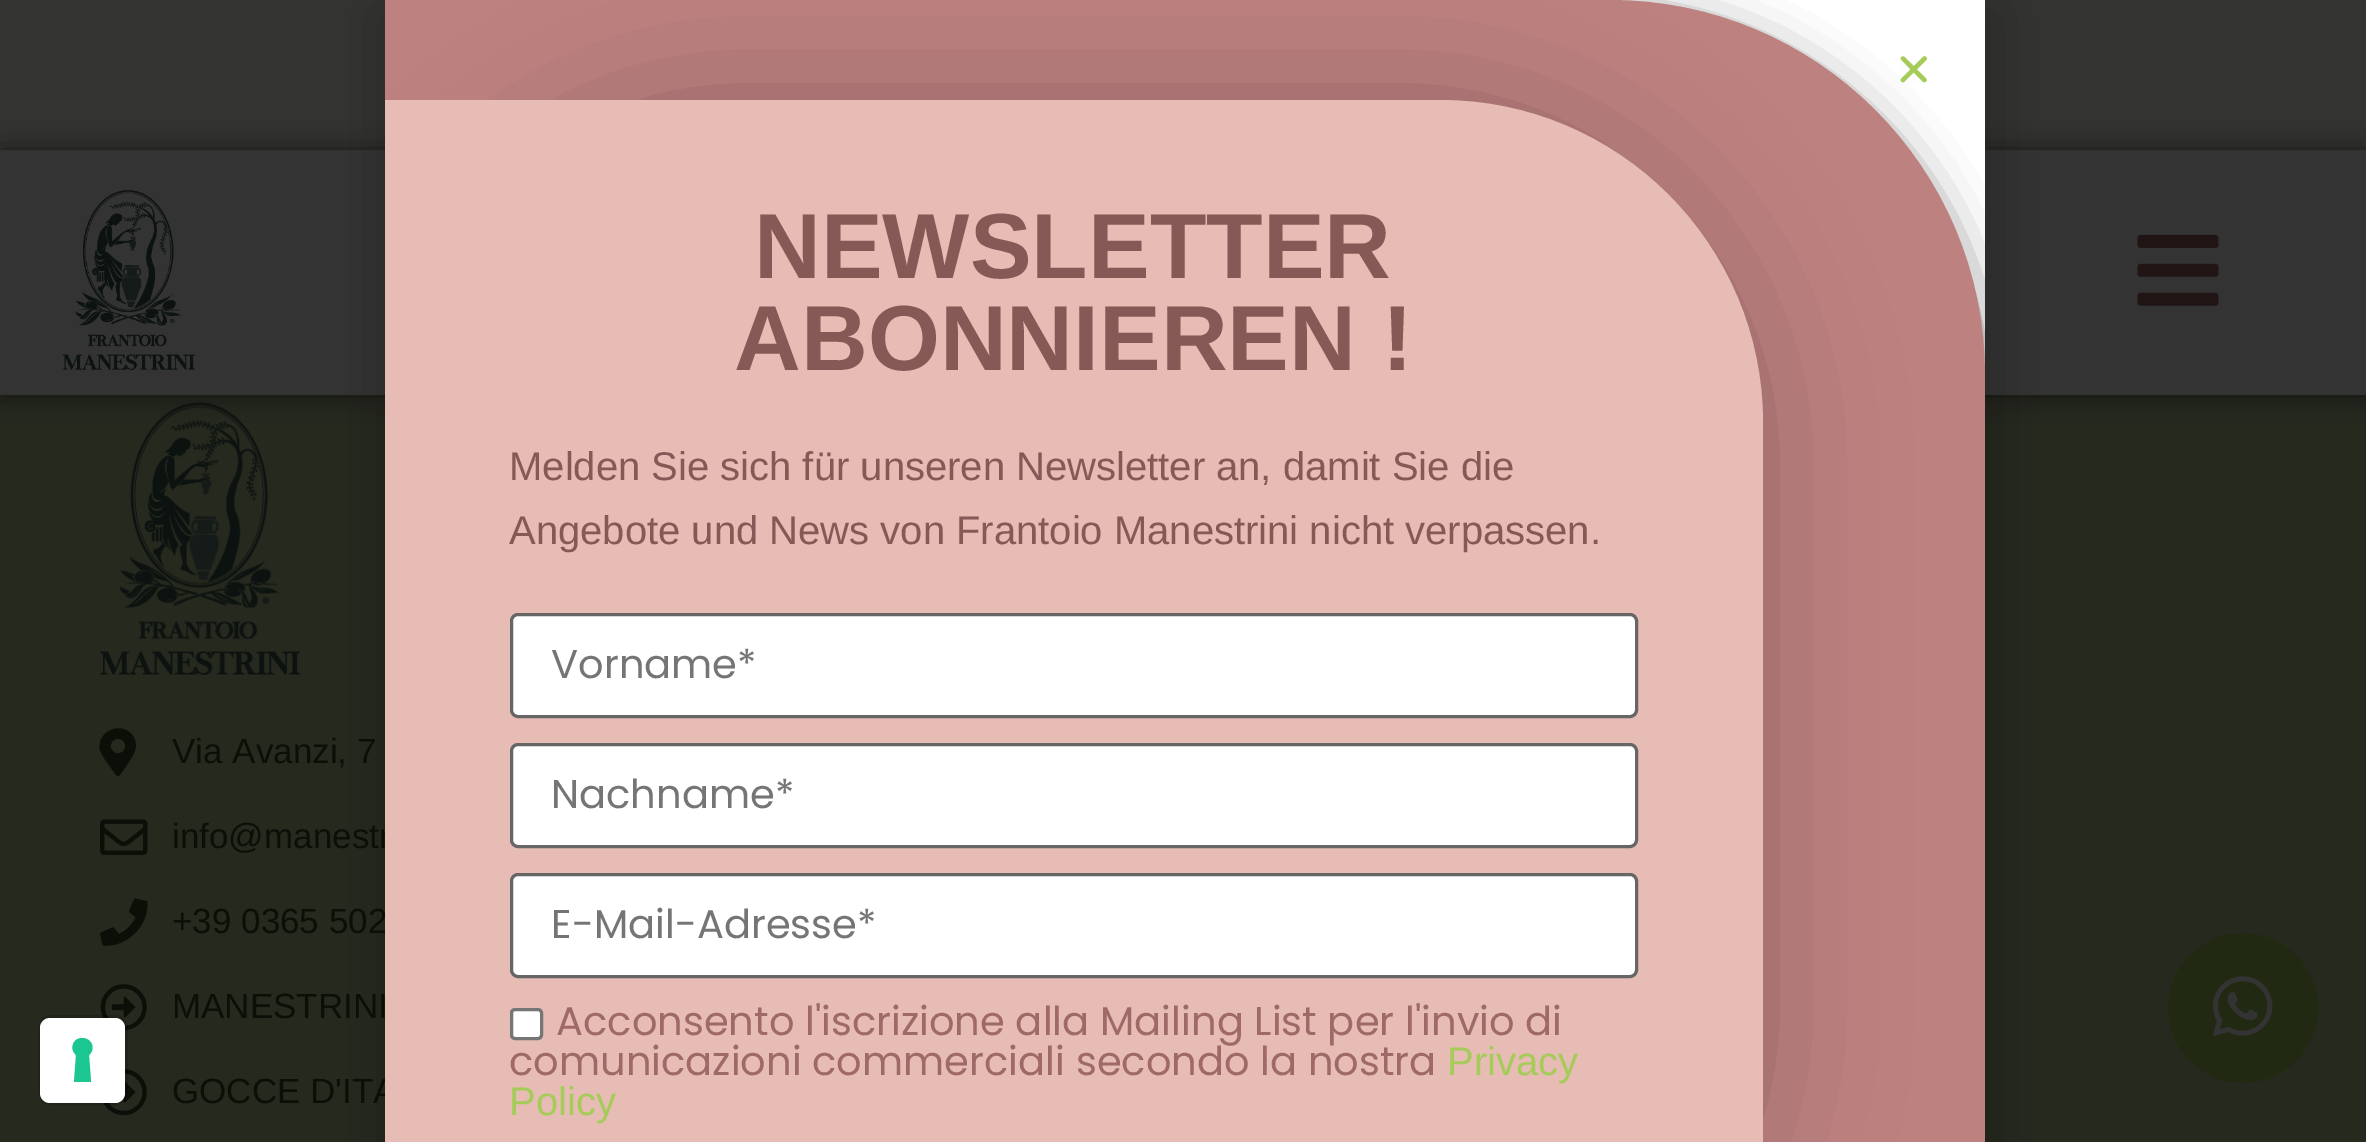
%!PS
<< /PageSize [2366 1142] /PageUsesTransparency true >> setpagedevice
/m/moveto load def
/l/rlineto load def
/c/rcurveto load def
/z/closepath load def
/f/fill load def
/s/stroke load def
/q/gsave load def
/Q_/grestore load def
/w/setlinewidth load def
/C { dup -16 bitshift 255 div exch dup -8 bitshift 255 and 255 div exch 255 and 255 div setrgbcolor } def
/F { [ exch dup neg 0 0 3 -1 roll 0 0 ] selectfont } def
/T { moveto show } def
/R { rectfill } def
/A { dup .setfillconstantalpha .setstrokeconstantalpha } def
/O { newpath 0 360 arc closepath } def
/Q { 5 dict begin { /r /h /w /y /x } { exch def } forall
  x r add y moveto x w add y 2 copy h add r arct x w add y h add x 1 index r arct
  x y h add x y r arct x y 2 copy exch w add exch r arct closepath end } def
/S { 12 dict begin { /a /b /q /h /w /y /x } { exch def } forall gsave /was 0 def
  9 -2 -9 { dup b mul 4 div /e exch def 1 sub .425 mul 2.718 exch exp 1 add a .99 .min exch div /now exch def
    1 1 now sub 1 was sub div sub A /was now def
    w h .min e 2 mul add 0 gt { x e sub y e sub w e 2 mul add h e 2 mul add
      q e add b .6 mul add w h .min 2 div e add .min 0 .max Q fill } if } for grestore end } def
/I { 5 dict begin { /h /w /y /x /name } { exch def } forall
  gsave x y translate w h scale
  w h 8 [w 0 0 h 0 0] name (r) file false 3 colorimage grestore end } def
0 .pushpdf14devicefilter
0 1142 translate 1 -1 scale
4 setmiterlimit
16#333331 C
0 0 2366 1142 R
16#26291E C
0 395 2366 747 R
(6.rgb) 100 984 47 47 I
(7.rgb) 103 1069 44 47 I
0.15 A
16#000000 C
3 w
39.5 1016.5 87 87 11.5 Q s
1 A
16#FFFFFF C
40 1018 85 85 10 Q f
16#1CC691 C
82 1038 m 10 0 14 11 7 17 c 2 27 l -17 0 l 2 -27 l -7 -6 -3 -17 6 -17 c z eofill
(3.rgb) 100 402 200 273 I
16#000000 C
0 150 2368 245 0 12.5 .5 S
16#333333 C
0 150 2366 245 R
(1.rgb) 62 190 133 180 I
(2.rgb) 2137 234 82 72 I
16#0C0F08 C
116 775 m -4 -6 -14 -18 -16 -25 c -4 -19 22 -30 33 -14 c 8 12 -2 22 -8 32 c -6 8 l -1 0 -2 0 -3 -1 c z 113 751 m 6 7 17 -3 10 -10 c -7 -7 -17 4 -10 10 c z f
/LiberationSans-Regular 35 F
(Via Avanzi, 7) 172 763 T
(4.rgb) 100 819 48 36 I
(info@manestr) 172 848 T
(5.rgb) 100 898 48 48 I
(+39 0365 502) 172 933 T
(MANESTRINI) 172 1018 T
(GOCCE D'ITA) 172 1103 T
16#212912 C
2243 1008 75 O f
(8.rgb) 2212 976 61 61 I
16#000000 C
383 13 1615 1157 0 29 .2 S
16#FFFFFF C
1612 0 373 375 R
q
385 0 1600 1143 rectclip
16#000000 C
385 13 1600 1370 375 25 .5 S
Q_
16#BD8280 C
385 0 m 1225 0 l 207 0 375 168 375 375 c 0 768 l -1600 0 l z f
q
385 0 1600 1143 rectclip
16#000000 C
385 100 1378 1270 323 67.5 .24 S
Q_
(9.rgb) 1900 56 28 27 I
16#E6BCB5 C
385 100 m 1055 0 l 178.5 0 323 144.5 323 323 c 0 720 l -1378 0 l z f
/LiberationSans-Bold 92.5 F
16#875956 C
(NEWSLETTER) 754 278 T
(ABONNIEREN !) 734 370 T
/LiberationSans-Regular 40 F
(Melden Sie sich für unseren Newsletter an, damit Sie die) 509 480 T
(Angebote und News von Frantoio Manestrini nicht verpassen.) 509 544 T
16#FFFFFF C
511.5 614.5 1125 102 6.5 Q q f Q_
16#666666 C
s
/Poppins-Regular 40 F
16#757575 C
(Vorname*) 551 678 T
16#FFFFFF C
511.5 744.5 1125 102 6.5 Q q f Q_
16#666666 C
s
16#757575 C
(Nachname*) 551 808 T
16#FFFFFF C
511.5 874.5 1125 102 6.5 Q q f Q_
16#666666 C
s
16#757575 C
(E-Mail-Adresse*) 551 938 T
16#FFFFFF C
511.5 1009.5 30 29 3.5 Q q f Q_
16#767676 C
s
16#9E6966 C
(Acconsento l'iscrizione alla Mailing List per l'invio di) 556 1035 T
(comunicazioni commerciali secondo la nostra) 509 1075 T
/LiberationSans-Regular 40 F
16#A5CB58 C
(Privacy) 1447 1075 T
(Policy) 509 1115 T
.poppdf14devicefilter showpage
